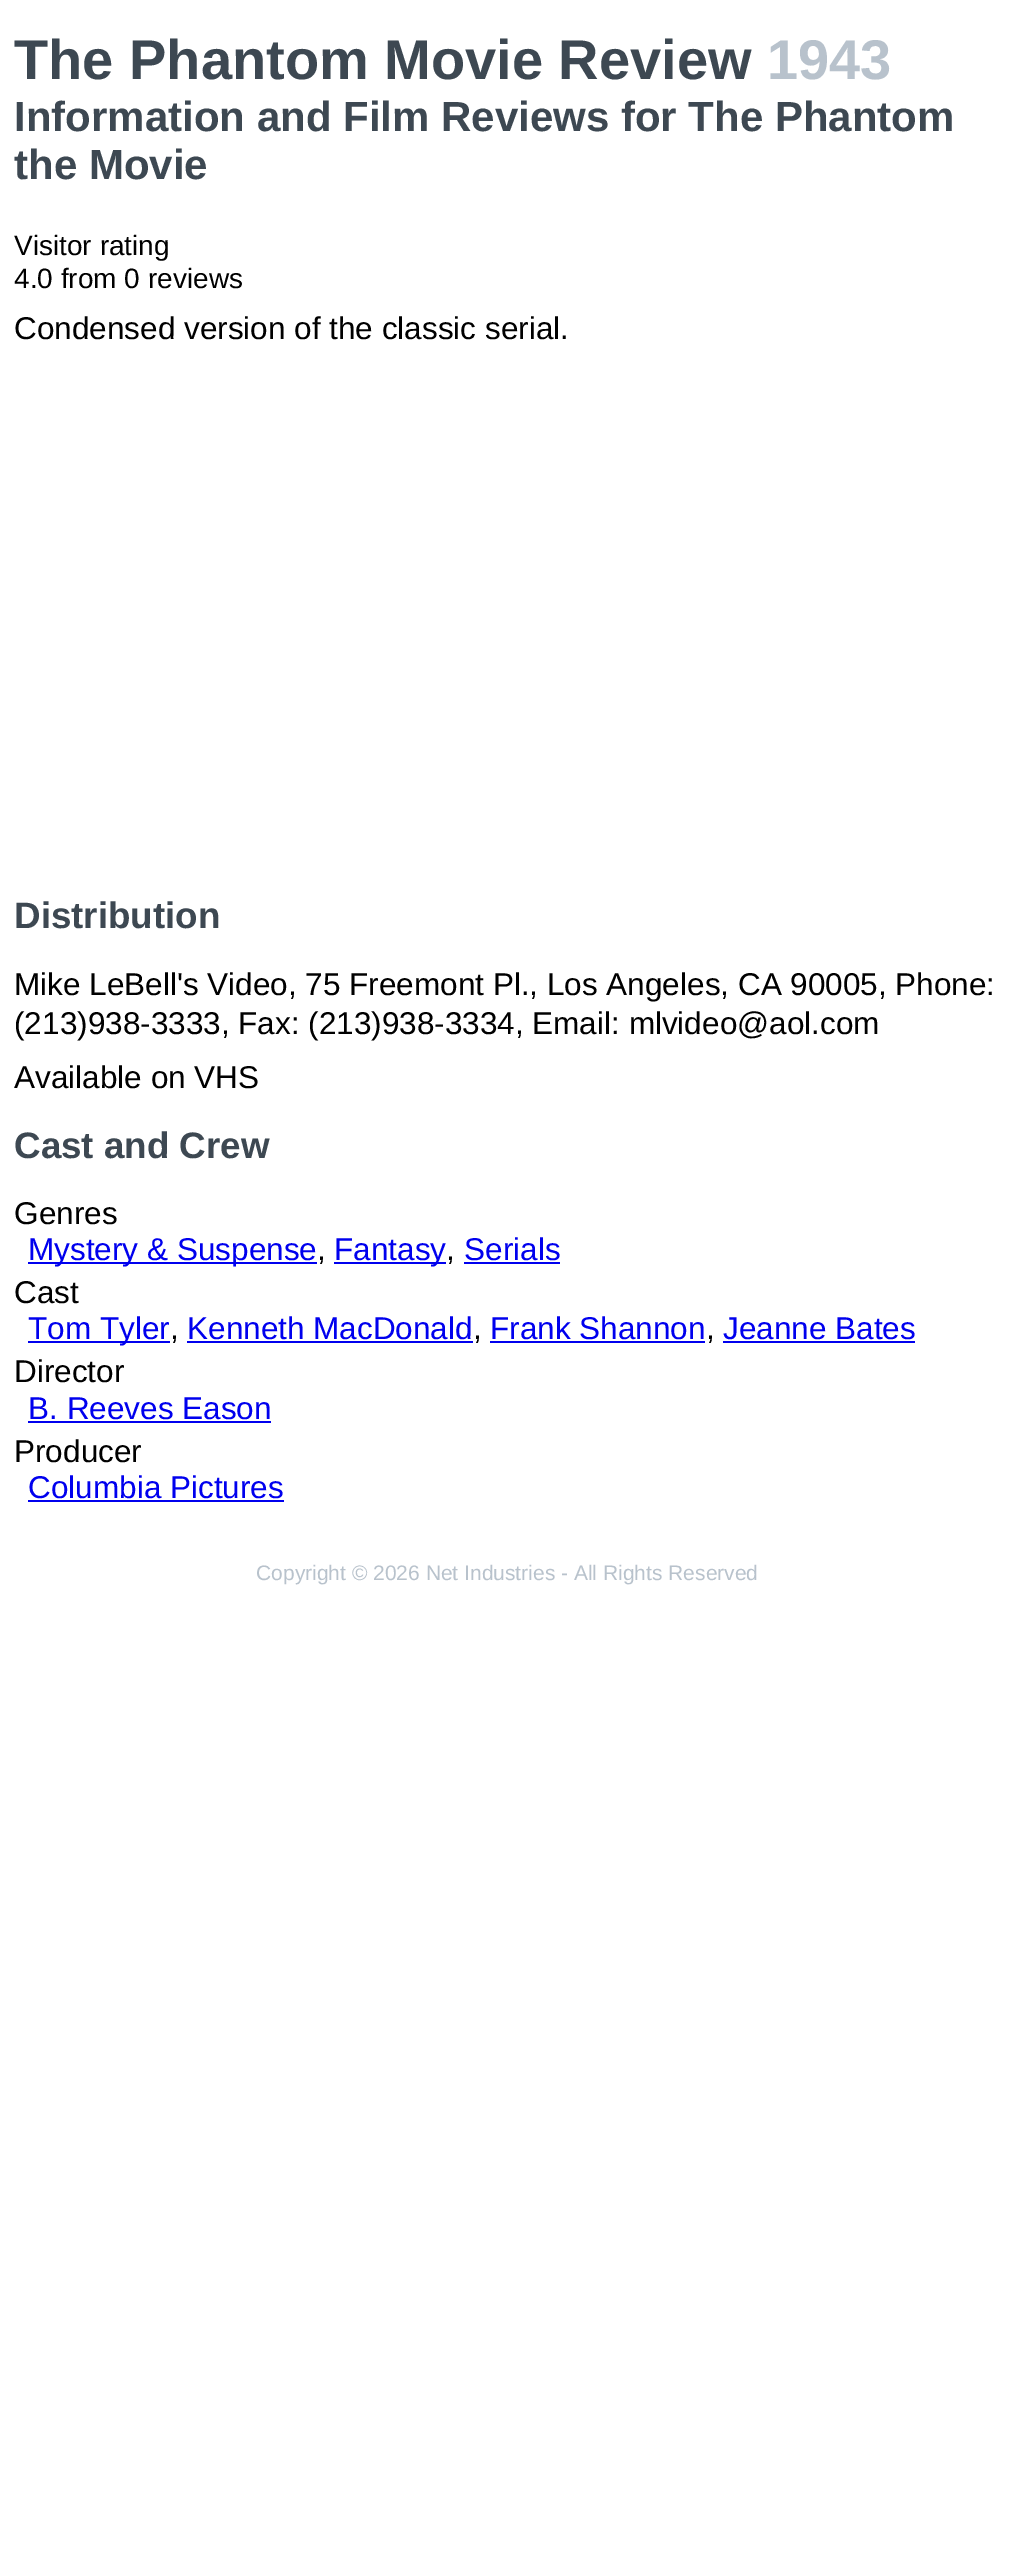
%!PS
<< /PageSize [1013 2560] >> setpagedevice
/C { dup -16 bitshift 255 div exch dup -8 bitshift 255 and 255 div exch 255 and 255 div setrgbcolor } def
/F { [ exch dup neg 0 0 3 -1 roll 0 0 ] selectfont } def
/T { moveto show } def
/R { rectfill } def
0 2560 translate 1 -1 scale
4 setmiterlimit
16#FFFFFF C
0 0 1013 2560 R
/LiberationSans-Bold 56 F
16#3D4852 C
(The Phantom Movie Review) 14 79 T
16#B8C2CC C
(1943) 767 79 T
/LiberationSans-Bold 42 F
16#3D4852 C
(Information and Film Reviews for The Phantom) 14 131 T
(the Movie) 14 179 T
/LiberationSans-Regular 28 F
16#000000 C
(Visitor rating) 14 255 T
(4.0 from 0 reviews) 14 288 T
/LiberationSans-Regular 31.5 F
(Condensed version of the classic serial.) 14 339 T
/LiberationSans-Bold 36.75 F
16#3D4852 C
(Distribution) 14 928 T
/LiberationSans-Regular 31.5 F
16#000000 C
(Mike LeBell's Video, 75 Freemont Pl., Los Angeles, CA 90005, Phone:) 14 995 T
(\(213\)938-3333, Fax: \(213\)938-3334, Email: mlvideo@aol.com) 14 1034 T
(Available on VHS) 14 1088 T
/LiberationSans-Bold 36.75 F
16#3D4852 C
(Cast and Crew) 14 1158 T
/LiberationSans-Regular 31.5 F
16#000000 C
(Genres) 14 1224 T
16#0000EE C
28 1262 289 2 R
(Mystery & Suspense) 28 1260 T
16#000000 C
(,) 317 1260 T
16#0000EE C
334 1262 112 2 R
(Fantasy) 334 1260 T
16#000000 C
(,) 446 1260 T
16#0000EE C
(Serials) 464 1260 T
464 1262 96 2 R
16#000000 C
(Cast) 14 1303 T
16#0000EE C
28 1341 142 2 R
(Tom Tyler) 28 1339 T
16#000000 C
(,) 170 1339 T
16#0000EE C
(Kenneth MacDonald) 187 1339 T
187 1341 286 2 R
16#000000 C
(,) 473 1339 T
16#0000EE C
(Frank Shannon) 490 1339 T
490 1341 215 2 R
16#000000 C
(,) 706 1339 T
16#0000EE C
(Jeanne Bates) 723 1339 T
723 1341 192 2 R
16#000000 C
(Director) 14 1382 T
16#0000EE C
(B. Reeves Eason) 28 1419 T
28 1421 243 2 R
16#000000 C
(Producer) 14 1462 T
16#0000EE C
(Columbia Pictures) 28 1498 T
28 1500 256 2 R
/LiberationSans-Regular 21 F
16#B8C2CC C
(Copyright © 2026 Net Industries - All Rights Reserved) 256 1580 T
showpage
